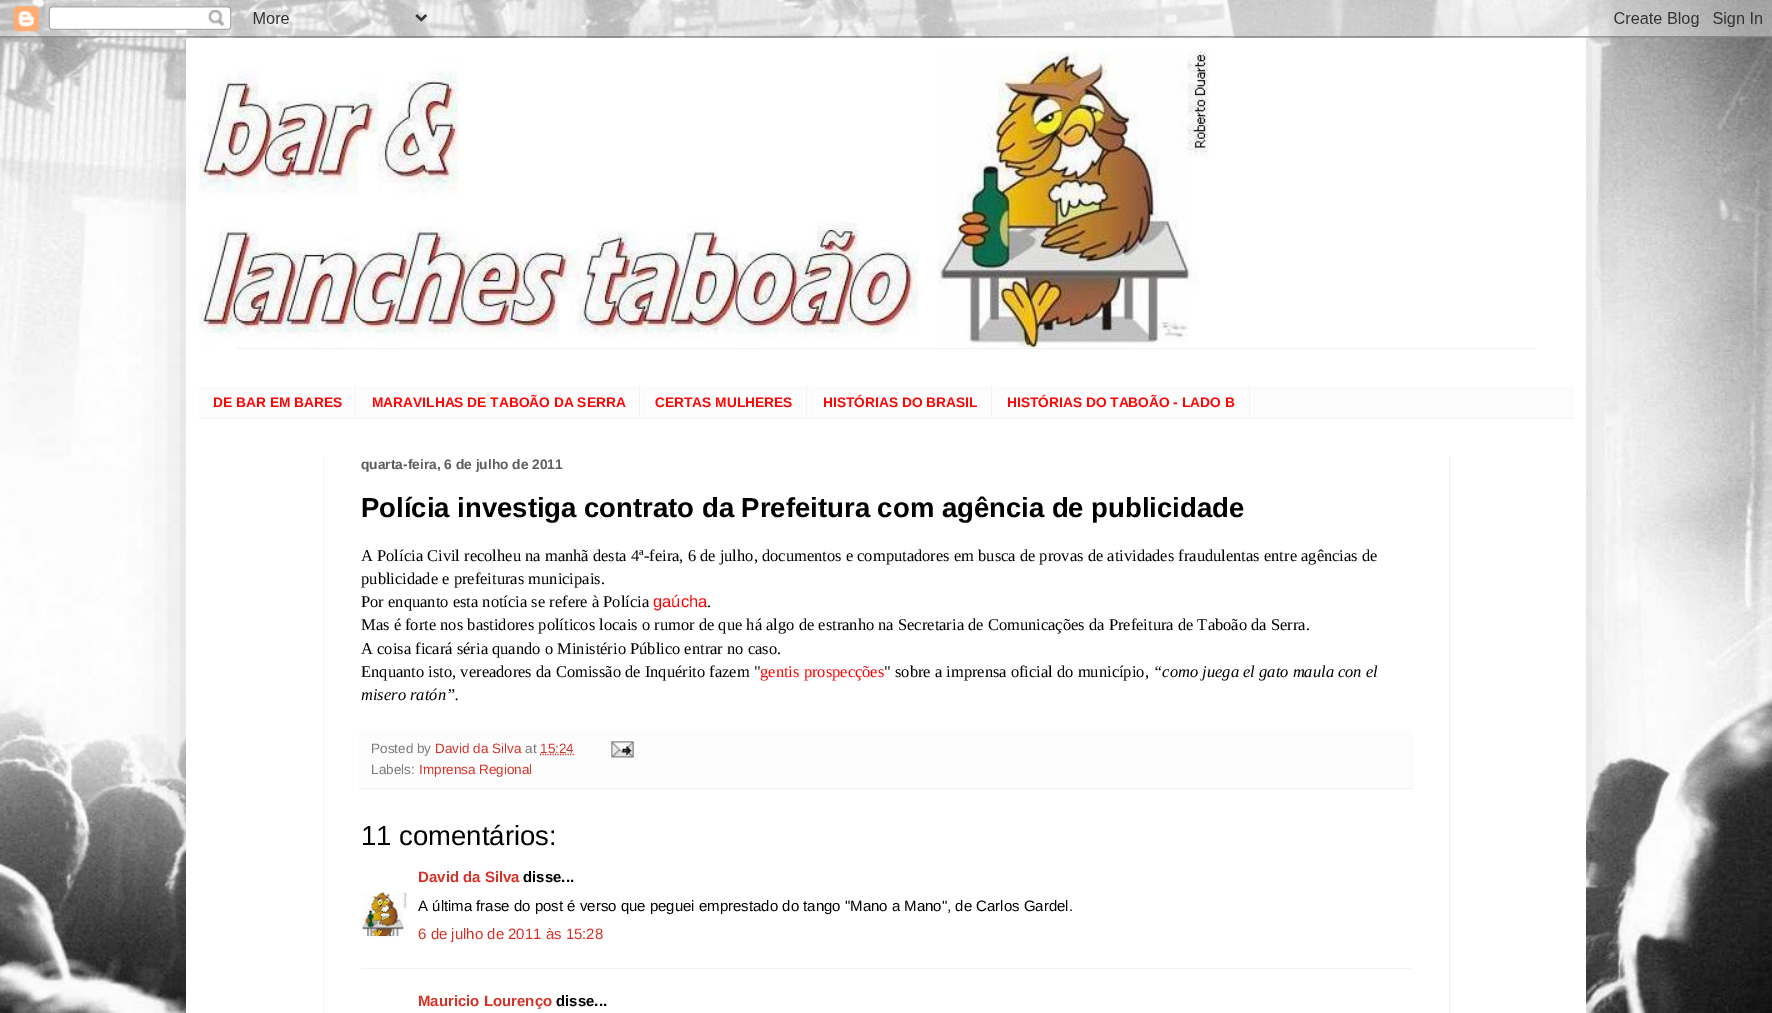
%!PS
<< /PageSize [1772 1013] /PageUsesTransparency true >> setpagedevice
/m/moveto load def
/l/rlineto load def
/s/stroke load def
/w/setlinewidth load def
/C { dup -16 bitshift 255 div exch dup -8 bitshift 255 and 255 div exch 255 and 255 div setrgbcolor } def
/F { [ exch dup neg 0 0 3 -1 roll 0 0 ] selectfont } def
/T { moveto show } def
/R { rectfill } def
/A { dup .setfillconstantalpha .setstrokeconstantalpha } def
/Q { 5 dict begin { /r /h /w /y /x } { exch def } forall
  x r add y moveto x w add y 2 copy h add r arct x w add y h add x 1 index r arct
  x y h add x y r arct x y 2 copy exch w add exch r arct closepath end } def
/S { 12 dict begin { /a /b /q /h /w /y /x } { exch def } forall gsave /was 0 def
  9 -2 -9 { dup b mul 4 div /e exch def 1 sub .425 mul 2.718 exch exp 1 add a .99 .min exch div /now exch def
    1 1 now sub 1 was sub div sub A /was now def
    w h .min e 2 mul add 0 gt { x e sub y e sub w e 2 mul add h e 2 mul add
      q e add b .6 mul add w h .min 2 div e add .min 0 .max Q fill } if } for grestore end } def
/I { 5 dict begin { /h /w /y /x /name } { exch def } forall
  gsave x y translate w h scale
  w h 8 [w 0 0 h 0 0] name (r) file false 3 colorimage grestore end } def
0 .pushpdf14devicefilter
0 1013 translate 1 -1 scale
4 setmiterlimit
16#FFFFFF C
0 0 1772 1013 R
(1.rgb) 0 0 1772 1013 I
16#000000 C
186 38 1400 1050 0 25 .15 S
(2.rgb) 0 0 1772 38 I
16#FFFFFF C
186 38 1400 975 R
(3.rgb) 199 50 1010 298 I
16#F2F2F2 C
236 348 1300 1 R
16#FCFCFC C
199 386 1375 32 R
16#F2F2F2 C
199 418 1375 1 R
355 386 1 32 R
/LiberationSans-Bold 13.75 F
16#FF0606 C
(DE BAR EM BARES) 213 407 T
16#F2F2F2 C
639 386 1 32 R
16#FFFFFF C
356 386 1 32 R
16#FF0606 C
(MARAVILHAS DE TABOÃO DA SERRA) 372 407 T
16#F2F2F2 C
806 386 1 32 R
16#FFFFFF C
640 386 1 32 R
16#FF0606 C
(CERTAS MULHERES) 655 407 T
16#F2F2F2 C
991 386 1 32 R
16#FFFFFF C
808 386 1 32 R
16#FF0606 C
(HISTÓRIAS DO BRASIL) 823 407 T
16#F2F2F2 C
1249 386 1 32 R
16#FFFFFF C
993 386 1 32 R
16#FF0606 C
(HISTÓRIAS DO TABOÃO - LADO B) 1007 407 T
16#F2F2F2 C
323 456 1 557 R
16#5C5C5C C
(quarta-feira, 6 de julho de 2011) 361 469 T
/LiberationSans-Bold 27.5 F
16#000000 C
(Polícia investiga contrato da Prefeitura com agência de publicidade) 361 517 T
/LiberationSerif-Regular 16.5 F
(A Polícia Civil recolheu na manhã desta 4ª-feira, 6 de julho, documentos e computadores em busca de provas de atividades fraudulentas entre agências de) 361 561 T
(publicidade e prefeituras municipais.) 361 584 T
(Por enquanto esta notícia se refere à Polícia) 361 607 T
/LiberationSans-Regular 16.5 F
16#FF0000 C
(gaúcha) 653 607 T
/LiberationSerif-Regular 16.5 F
16#000000 C
(.) 707 607 T
(Mas é forte nos bastidores políticos locais o rumor de que há algo de estranho na Secretaria de Comunicações da Prefeitura de Taboão da Serra.) 361 630 T
(A coisa ficará séria quando o Ministério Público entrar no caso.) 361 654 T
(Enquanto isto, vereadores da Comissão de Inquérito fazem ") 361 677 T
16#FF0000 C
(gentis prospecções) 760 677 T
16#000000 C
(" sobre a imprensa oficial do município) 884 677 T
/LiberationSerif-Italic 16.5 F
(, “como juega el gato maula con el) 1145 677 T
(misero ratón”.) 361 700 T
16#FCFCFC C
359 731 1055 57 R
16#F2F2F2 C
359 788 1055 1 R
/LiberationSans-Regular 13.5 F
16#797979 C
(Posted by) 371 753 T
16#D73027 C
(David da Silva) 435 753 T
16#797979 C
(at) 525 753 T
16#D73027 C
1.2 w
[1.25 1.25] 0 setdash
540 754.5 m 34 0 l s
(15:24) 540 753 T
(4.rgb) 611 741 23 17 I
16#797979 C
(Labels:) 371 774 T
16#D73027 C
(Imprensa Regional) 419 774 T
/LiberationSans-Regular 27.5 F
16#000000 C
(11 comentários:) 361 845 T
/LiberationSans-Bold 15 F
16#D73027 C
(David da Silva) 418 882 T
16#000000 C
(disse...) 523 882 T
(5.rgb) 362 892 45 45 I
/LiberationSans-Regular 15 F
(A última frase do post é verso que peguei emprestado do tango "Mano a Mano", de Carlos Gardel.) 418 911 T
16#D73027 C
(6 de julho de 2011 às 15:28) 418 939 T
16#F2F2F2 C
361 968 1050 1 R
/LiberationSans-Bold 15 F
16#D73027 C
(Mauricio Lourenço) 418 1006 T
16#000000 C
(disse...) 556 1006 T
16#F2F2F2 C
1449 456 1 557 R
.poppdf14devicefilter showpage
